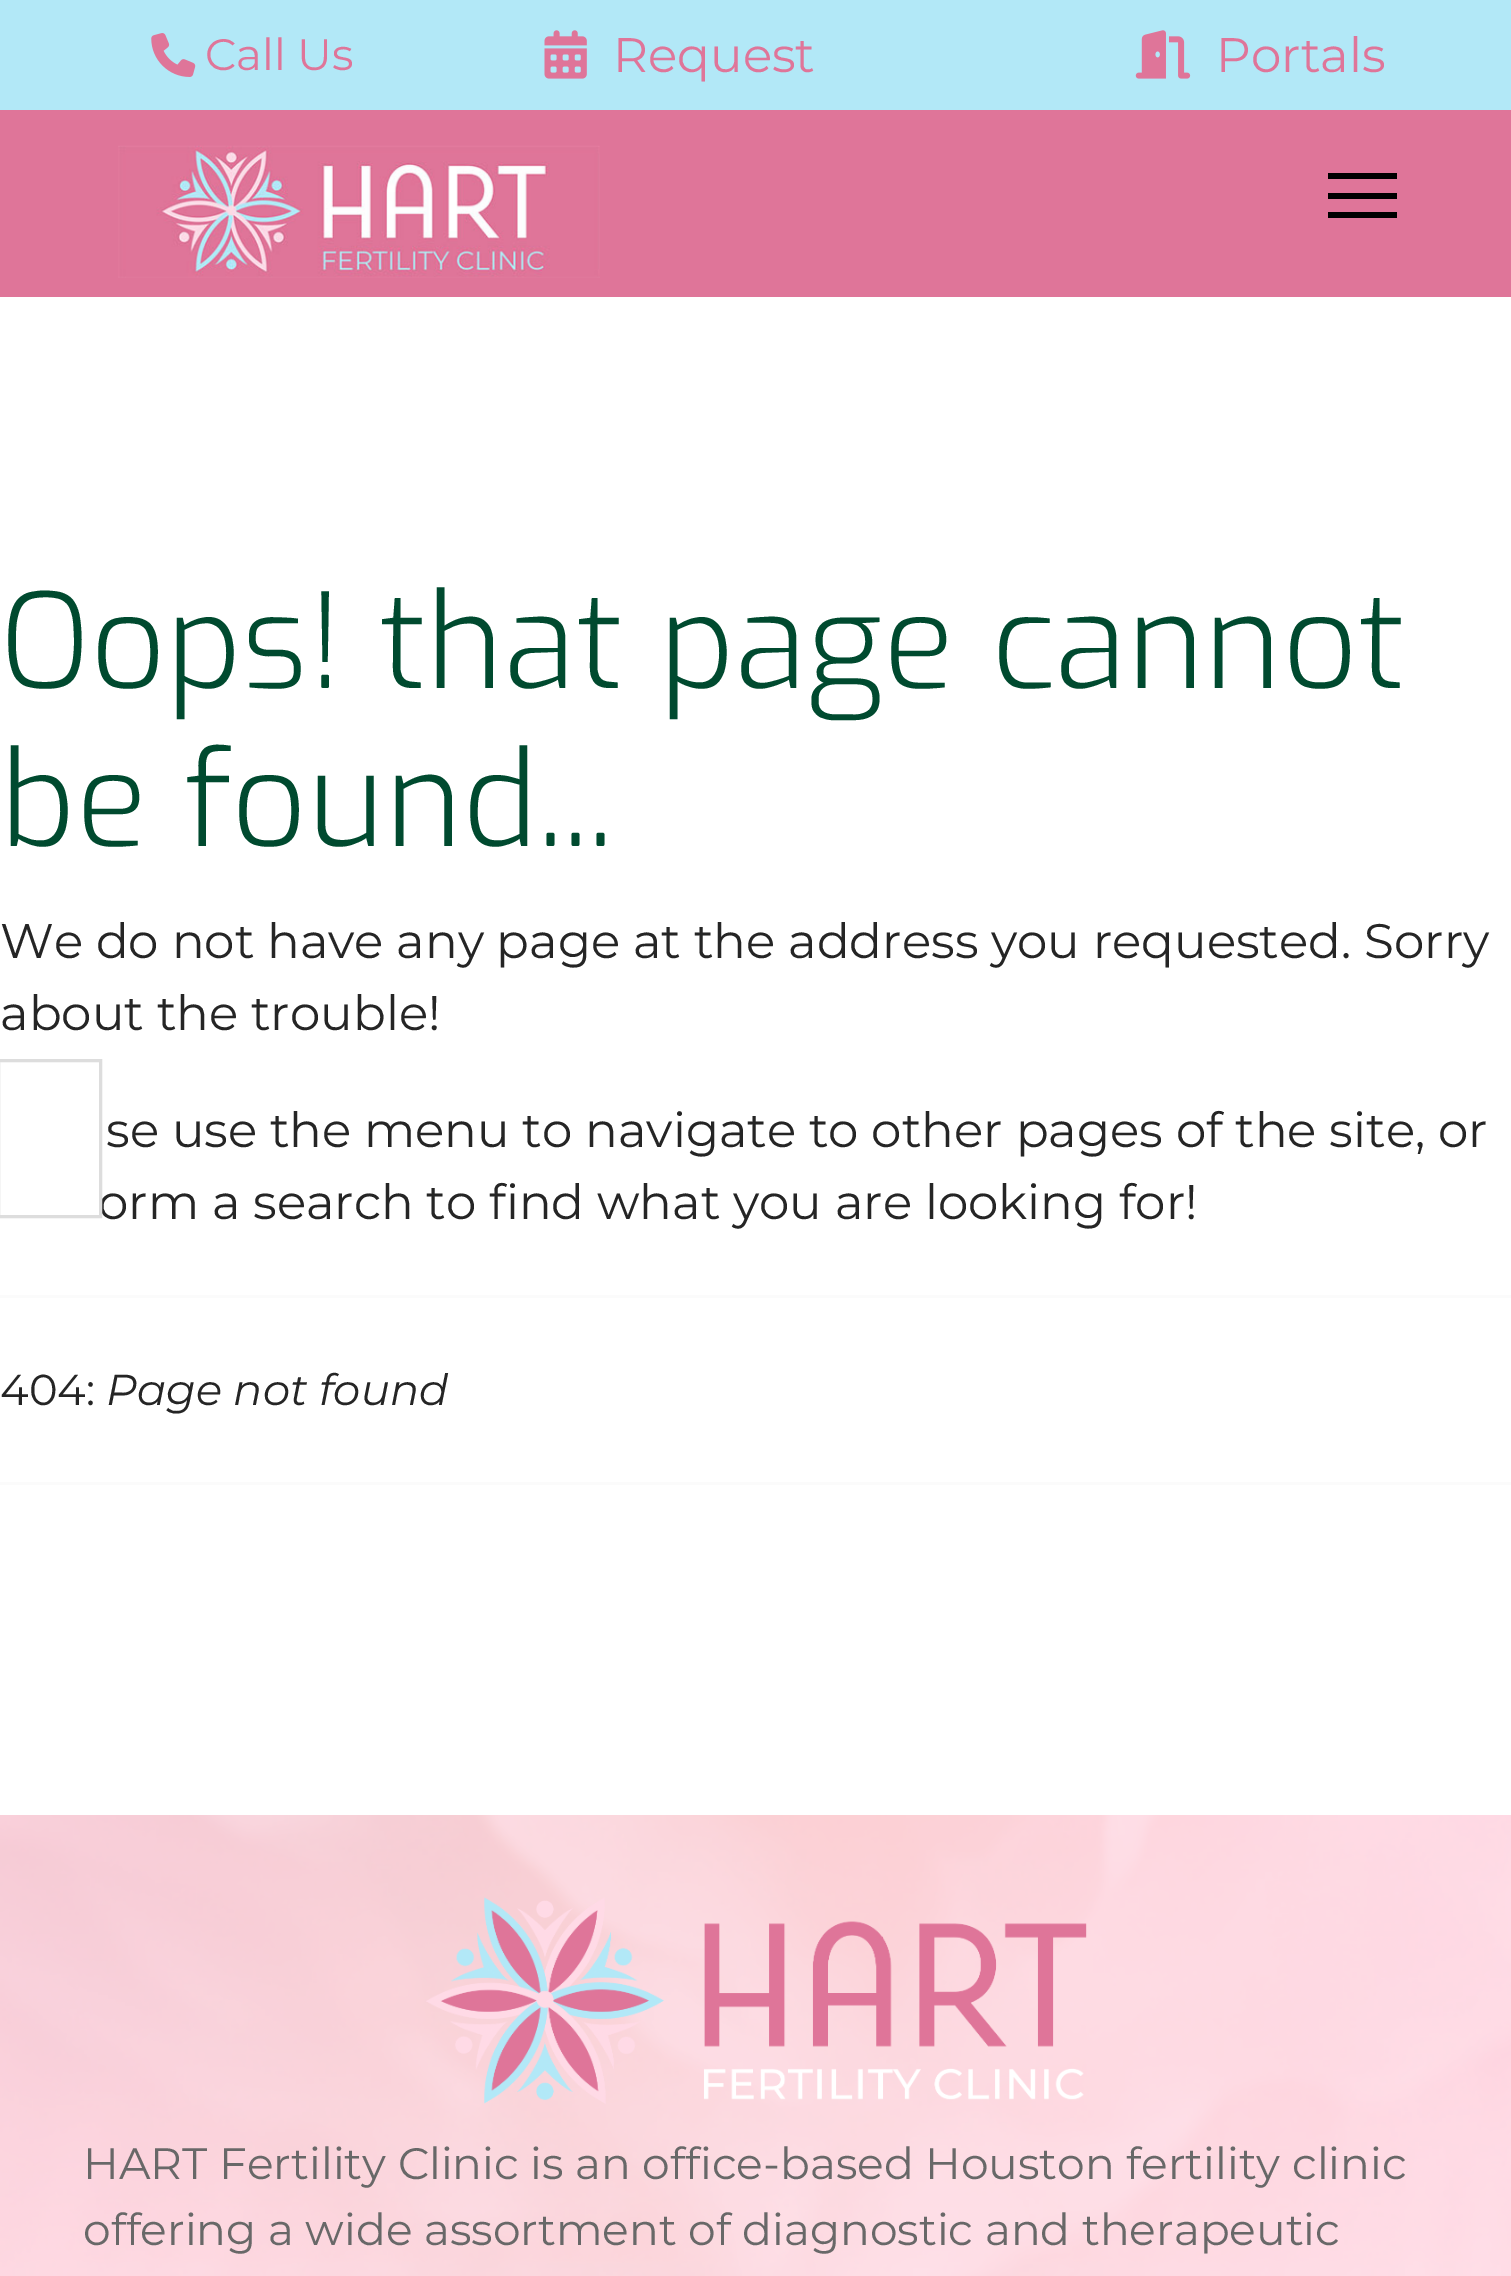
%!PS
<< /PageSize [1511 2276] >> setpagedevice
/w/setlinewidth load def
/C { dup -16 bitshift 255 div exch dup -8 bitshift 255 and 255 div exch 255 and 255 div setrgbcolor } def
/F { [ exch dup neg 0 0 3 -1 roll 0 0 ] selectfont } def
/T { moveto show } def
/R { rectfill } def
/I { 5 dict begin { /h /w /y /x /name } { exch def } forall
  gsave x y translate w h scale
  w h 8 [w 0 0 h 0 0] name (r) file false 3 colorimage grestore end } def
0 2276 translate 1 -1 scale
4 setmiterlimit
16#FFFFFF C
0 0 1511 2276 R
16#B2E8F7 C
0 0 1511 110 R
(1.rgb) 151 33 45 44 I
/Montserrat-Regular 44 F
16#DF7599 C
(Call Us) 205 70 T
(2.rgb) 544 30 43 49 I
/Montserrat-Regular 48.4 F
(Request) 613 72 T
(3.rgb) 1135 30 56 49 I
(Portals) 1216 72 T
16#252525 C
(orm a search to find what you are looking for!) 98 1219 T
16#DDDDDD C
3 w
-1.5 1060.5 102 156 rectstroke
/Exo-Light 132 F
16#004A2F C
(Oops! that page cannot) 0 688 T
(be found...) 0 846 T
/Montserrat-Regular 48.4 F
16#252525 C
(We do not have any page at the address you requested. Sorry) 0 958 T
(about the trouble!) 0 1030 T
(se use the menu to navigate to other pages of the site, or) 106 1147 T
16#FBFBFB C
0 1295 1511 3 R
/Montserrat-Regular 43.25 F
16#252525 C
(404:) 0 1405 T
/Montserrat-Italic 43.25 F
(Page not found) 106 1405 T
16#FBFBFB C
0 1482 1511 3 R
(4.rgb) 0 1815 1511 461 I
(5.rgb) 426 1897 661 207 I
/Montserrat-Regular 44 F
16#686868 C
(HART Fertility Clinic is an office-based Houston fertility clinic) 83 2179 T
(offering a wide assortment of diagnostic and therapeutic) 83 2245 T
16#DF7599 C
0 110 1511 187 R
(6.rgb) 118 145 482 133 I
16#000000 C
1328 173 69 6 R
1328 193 69 6 R
1328 212 69 6 R
showpage
